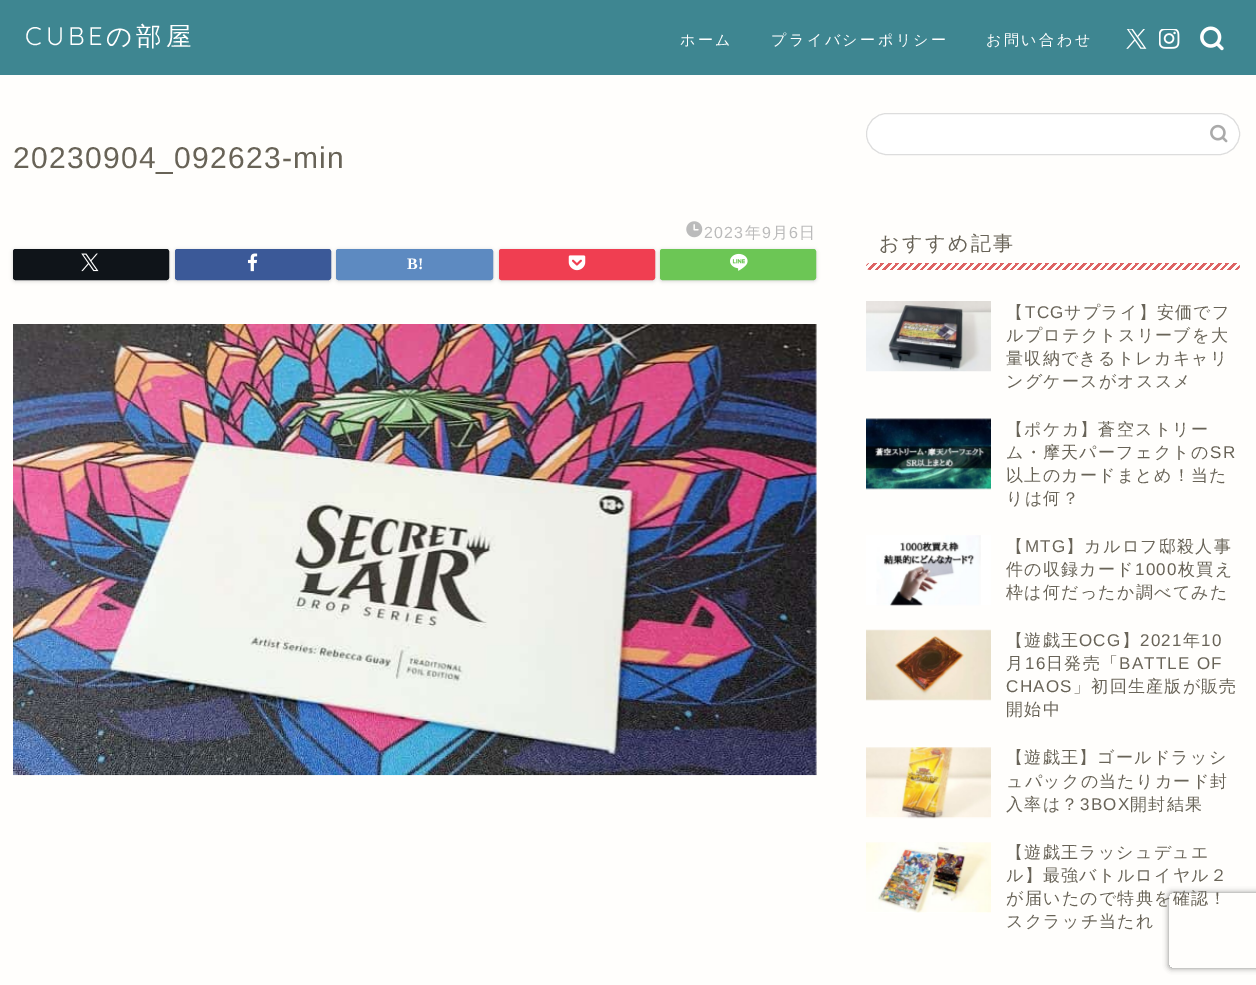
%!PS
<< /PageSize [1256 985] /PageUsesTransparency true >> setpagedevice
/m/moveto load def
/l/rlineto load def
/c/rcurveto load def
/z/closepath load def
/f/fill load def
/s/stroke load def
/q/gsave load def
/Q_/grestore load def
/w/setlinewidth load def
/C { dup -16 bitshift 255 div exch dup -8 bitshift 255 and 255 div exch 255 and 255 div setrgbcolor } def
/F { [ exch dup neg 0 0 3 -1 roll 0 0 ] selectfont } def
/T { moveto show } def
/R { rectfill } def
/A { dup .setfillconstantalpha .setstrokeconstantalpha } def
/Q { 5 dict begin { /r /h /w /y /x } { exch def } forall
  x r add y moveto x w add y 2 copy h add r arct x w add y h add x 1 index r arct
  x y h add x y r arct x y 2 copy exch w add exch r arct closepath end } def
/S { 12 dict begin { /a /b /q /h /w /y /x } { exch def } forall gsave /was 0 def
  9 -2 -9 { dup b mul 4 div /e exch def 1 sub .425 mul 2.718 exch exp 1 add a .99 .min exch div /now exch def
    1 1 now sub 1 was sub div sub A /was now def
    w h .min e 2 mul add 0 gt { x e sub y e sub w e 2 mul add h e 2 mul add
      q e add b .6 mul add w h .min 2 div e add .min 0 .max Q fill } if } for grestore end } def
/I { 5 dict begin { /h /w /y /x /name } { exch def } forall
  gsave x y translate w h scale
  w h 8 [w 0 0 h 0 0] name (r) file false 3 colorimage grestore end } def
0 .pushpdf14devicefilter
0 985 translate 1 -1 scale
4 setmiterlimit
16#FFFEFC C
0 0 1256 985 R
16#3E8691 C
0 0 1256 75 R
/Quicksand-Regular 25.5 F
16#FFFFFF C
25 45 m 4 0 (CUBE) ashow
/WenQuanYiZenHei-Medium 25.5 F
106 45 m 4 0 (の部屋) ashow
/WenQuanYiZenHei-Medium 15 F
680 45 m 2.5 0 (ホーム) ashow
771 45 m 2.5 0 (プライバシーポリシー) ashow
986 45 m 2.5 0 (お問い合わせ) ashow
(1.rgb) 1126 29 21 20 I
(2.rgb) 1159 29 21 20 I
(3.rgb) 1200 26 24 25 I
/LiberationSans-Regular 30 F
16#686357 C
13 168 m 1.25 0 (20230904_092623-min) ashow
(4.rgb) 686 221 17 17 I
/LiberationSans-Regular 16 F
16#BBBBBB C
704 238 m 1.25 0 (2023) ashow
/WenQuanYiZenHei-Medium 16 F
745 238 m 1.25 0 (年) ashow
/LiberationSans-Regular 16 F
762 238 m 1.25 0 (9) ashow
/WenQuanYiZenHei-Medium 16 F
772 238 m 1.25 0 (月) ashow
/LiberationSans-Regular 16 F
789 238 m 1.25 0 (6) ashow
/WenQuanYiZenHei-Medium 16 F
799 238 m 1.25 0 (日) ashow
16#000000 C
13 250 156 31 2.5 2 .18 S
16#0F1419 C
14.5 250.5 153 28 1 Q q f Q_
3 w
s
(5.rgb) 81 253 18 19 I
16#000000 C
175 250 156 31 2.5 2 .18 S
16#3B5998 C
176.5 250.5 153 28 1 Q q f Q_
s
(6.rgb) 247 253 11 19 I
16#000000 C
336 250 157 31 2.5 2 .18 S
16#5D8AC1 C
337.5 250.5 154 28 1 Q q f Q_
s
/LiberationSerif-Bold 16 F
16#FFFFFF C
(B!) 407 269 T
16#000000 C
499 250 156 31 2.5 2 .18 S
16#F03E51 C
500.5 250.5 153 28 1 Q q f Q_
s
(7.rgb) 568 255 18 16 I
16#000000 C
660 250 156 31 2.5 2 .18 S
16#6CC655 C
661.5 250.5 153 28 1 Q q f Q_
s
(8.rgb) 730 253 18 18 I
(9.rgb) 13 324 804 452 I
16#FFFFFF C
866.5 113.5 373 41 20.5 Q q f Q_
16#DDDDDD C
1 w
s
(10.rgb) 1210 124 18 19 I
/WenQuanYiZenHei-Medium 20 F
16#686357 C
879 250 m 2.5 0 (おすすめ記事) ashow
(11.rgb) 866 263 374 7 I
(12.rgb) 866 301 125 71 I
/WenQuanYiZenHei-Medium 17 F
1006 318 m 1.25 0 (【) ashow
/LiberationSans-Regular 17 F
1025 318 m 1.25 0 (TCG) ashow
/WenQuanYiZenHei-Medium 17 F
1064 318 m 1.25 0 (サプライ】安価でフ) ashow
1006 341 m 1.25 0 (ルプロテクトスリーブを大) ashow
1006 364 m 1.25 0 (量収納できるトレカキャリ) ashow
1006 387 m 1.25 0 (ングケースがオススメ) ashow
16#FFFFFF C
866 419 125 70 R
(13.rgb) 866 418 125 72 I
16#686357 C
1006 435 m 1.25 0 (【ポケカ】蒼空ストリー) ashow
1006 458 m 1.25 0 (ム・摩天パーフェクトの) ashow
/LiberationSans-Regular 17 F
1210 458 m 1.25 0 (SR) ashow
/WenQuanYiZenHei-Medium 17 F
1006 481 m 1.25 0 (以上のカードまとめ！当た) ashow
1006 504 m 1.25 0 (りは何？) ashow
16#FFFFFF C
866 535 125 70 R
(14.rgb) 876 535 105 71 I
16#686357 C
1006 552 m 1.25 0 (【) ashow
/LiberationSans-Regular 17 F
1025 552 m 1.25 0 (MTG) ashow
/WenQuanYiZenHei-Medium 17 F
1066 552 m 1.25 0 (】カルロフ邸殺人事) ashow
1006 575 m 1.25 0 (件の収録カード) ashow
/LiberationSans-Regular 17 F
1135 575 m 1.25 0 (1000) ashow
/WenQuanYiZenHei-Medium 17 F
1178 575 m 1.25 0 (枚買え) ashow
1006 598 m 1.25 0 (枠は何だったか調べてみた) ashow
(15.rgb) 866 629 125 72 I
1006 646 m 1.25 0 (【遊戯王) ashow
/LiberationSans-Regular 17 F
1079 646 m 1.25 0 (OCG) ashow
/WenQuanYiZenHei-Medium 17 F
1122 646 m 1.25 0 (】) ashow
/LiberationSans-Regular 17 F
1140 646 m 1.25 0 (2021) ashow
/WenQuanYiZenHei-Medium 17 F
1183 646 m 1.25 0 (年) ashow
/LiberationSans-Regular 17 F
1201 646 m 1.25 0 (10) ashow
/WenQuanYiZenHei-Medium 17 F
1006 669 m 1.25 0 (月) ashow
/LiberationSans-Regular 17 F
1025 669 m 1.25 0 (16) ashow
/WenQuanYiZenHei-Medium 17 F
1046 669 m 1.25 0 (日発売「) ashow
/LiberationSans-Regular 17 F
1119 669 m 1.25 0 (BATTLE OF) ashow
1006 692 m 1.25 0 (CHAOS) ashow
/WenQuanYiZenHei-Medium 17 F
1073 692 m 1.25 0 (」初回生産版が販売) ashow
1006 715 m 1.25 0 (開始中) ashow
16#FFFFFF C
866 748 125 70 R
(16.rgb) 866 747 125 72 I
16#686357 C
1006 763 m 1.25 0 (【遊戯王】ゴールドラッシ) ashow
1006 787 m 1.25 0 (ュパックの当たりカード封) ashow
1006 810 m 1.25 0 (入率は？) ashow
/LiberationSans-Regular 17 F
1080 810 m 1.25 0 (3BOX) ashow
/WenQuanYiZenHei-Medium 17 F
1130 810 m 1.25 0 (開封結果) ashow
16#FFFFFF C
866 843 125 70 R
(17.rgb) 866 842 125 71 I
16#686357 C
1006 858 m 1.25 0 (【遊戯王ラッシュデュエ) ashow
1006 881 m 1.25 0 (ル】最強バトルロイヤル２) ashow
1006 904 m 1.25 0 (が届いたので特典を確認！) ashow
1006 927 m 1.25 0 (スクラッチ当たれ) ashow
q
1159 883 m 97 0 l 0 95 l -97 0 l z 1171.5 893 m 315 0 l 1.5 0 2.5 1 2.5 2.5 c 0 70 l 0 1.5 -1 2.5 -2.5 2.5 c -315 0 l -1.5 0 -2.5 -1 -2.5 -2.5 c 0 -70 l 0 -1.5 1 -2.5 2.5 -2.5 c z eoclip newpath
16#808080 C
1169 893 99 75 2.5 3 1 S
Q_
.poppdf14devicefilter showpage
